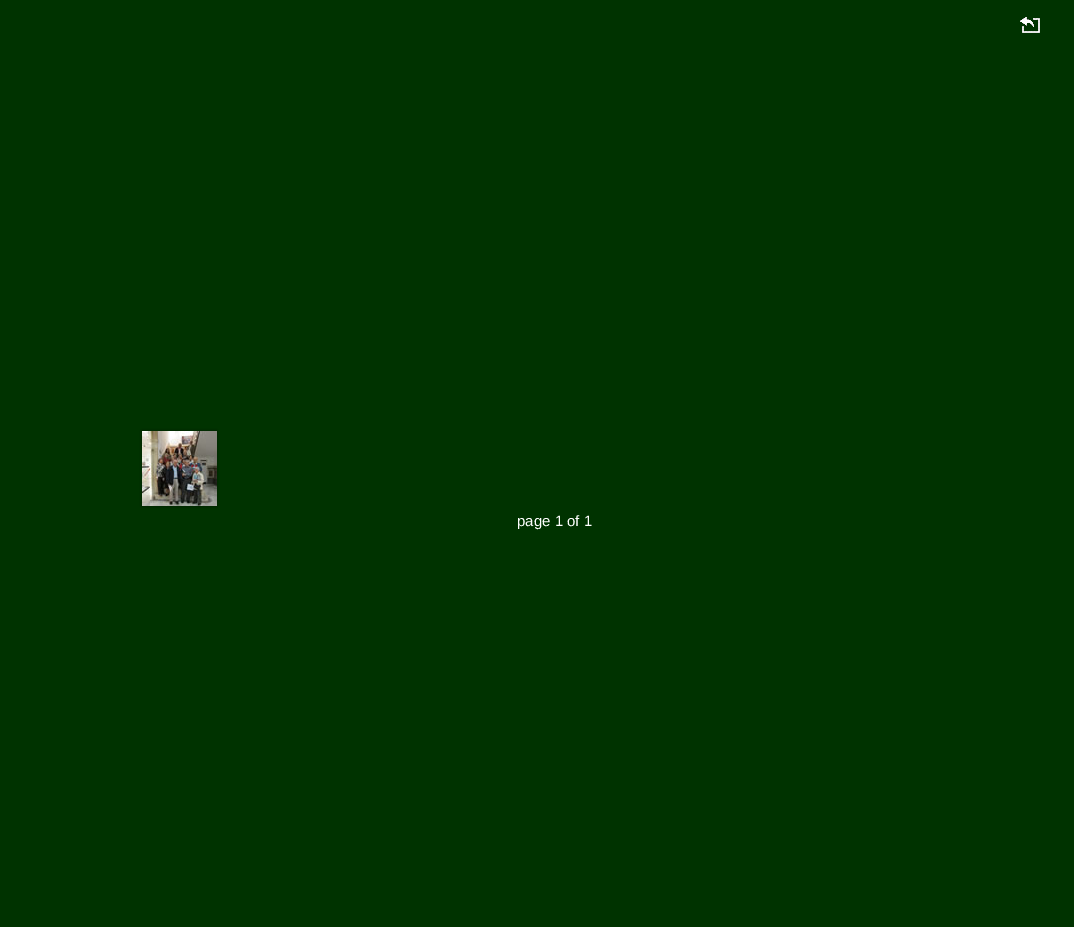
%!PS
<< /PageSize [1074 927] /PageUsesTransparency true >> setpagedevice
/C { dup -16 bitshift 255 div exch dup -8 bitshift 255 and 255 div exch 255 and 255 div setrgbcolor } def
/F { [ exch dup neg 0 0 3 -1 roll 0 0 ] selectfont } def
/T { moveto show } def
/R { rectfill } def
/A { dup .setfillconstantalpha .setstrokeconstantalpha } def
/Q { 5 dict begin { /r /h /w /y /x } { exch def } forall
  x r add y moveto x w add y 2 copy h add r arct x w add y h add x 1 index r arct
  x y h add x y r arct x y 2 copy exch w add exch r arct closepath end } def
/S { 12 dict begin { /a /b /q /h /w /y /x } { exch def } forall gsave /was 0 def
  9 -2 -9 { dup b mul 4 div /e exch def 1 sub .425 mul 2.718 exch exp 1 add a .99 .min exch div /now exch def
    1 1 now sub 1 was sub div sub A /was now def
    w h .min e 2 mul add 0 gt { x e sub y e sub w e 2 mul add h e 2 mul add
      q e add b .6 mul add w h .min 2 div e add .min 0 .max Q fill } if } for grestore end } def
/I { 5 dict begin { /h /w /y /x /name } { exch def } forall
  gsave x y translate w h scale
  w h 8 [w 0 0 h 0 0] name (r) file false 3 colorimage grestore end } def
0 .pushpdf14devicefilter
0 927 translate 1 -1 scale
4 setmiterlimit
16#003300 C
0 0 1074 927 R
(1.rgb) 1020 17 20 16 I
16#000000 C
142 431 75 75 0 1.5 .4 S
(2.rgb) 142 431 75 75 I
/LiberationSans-Regular 15 F
16#FFFFFF C
(page 1 of 1) 517 526 T
.poppdf14devicefilter showpage
